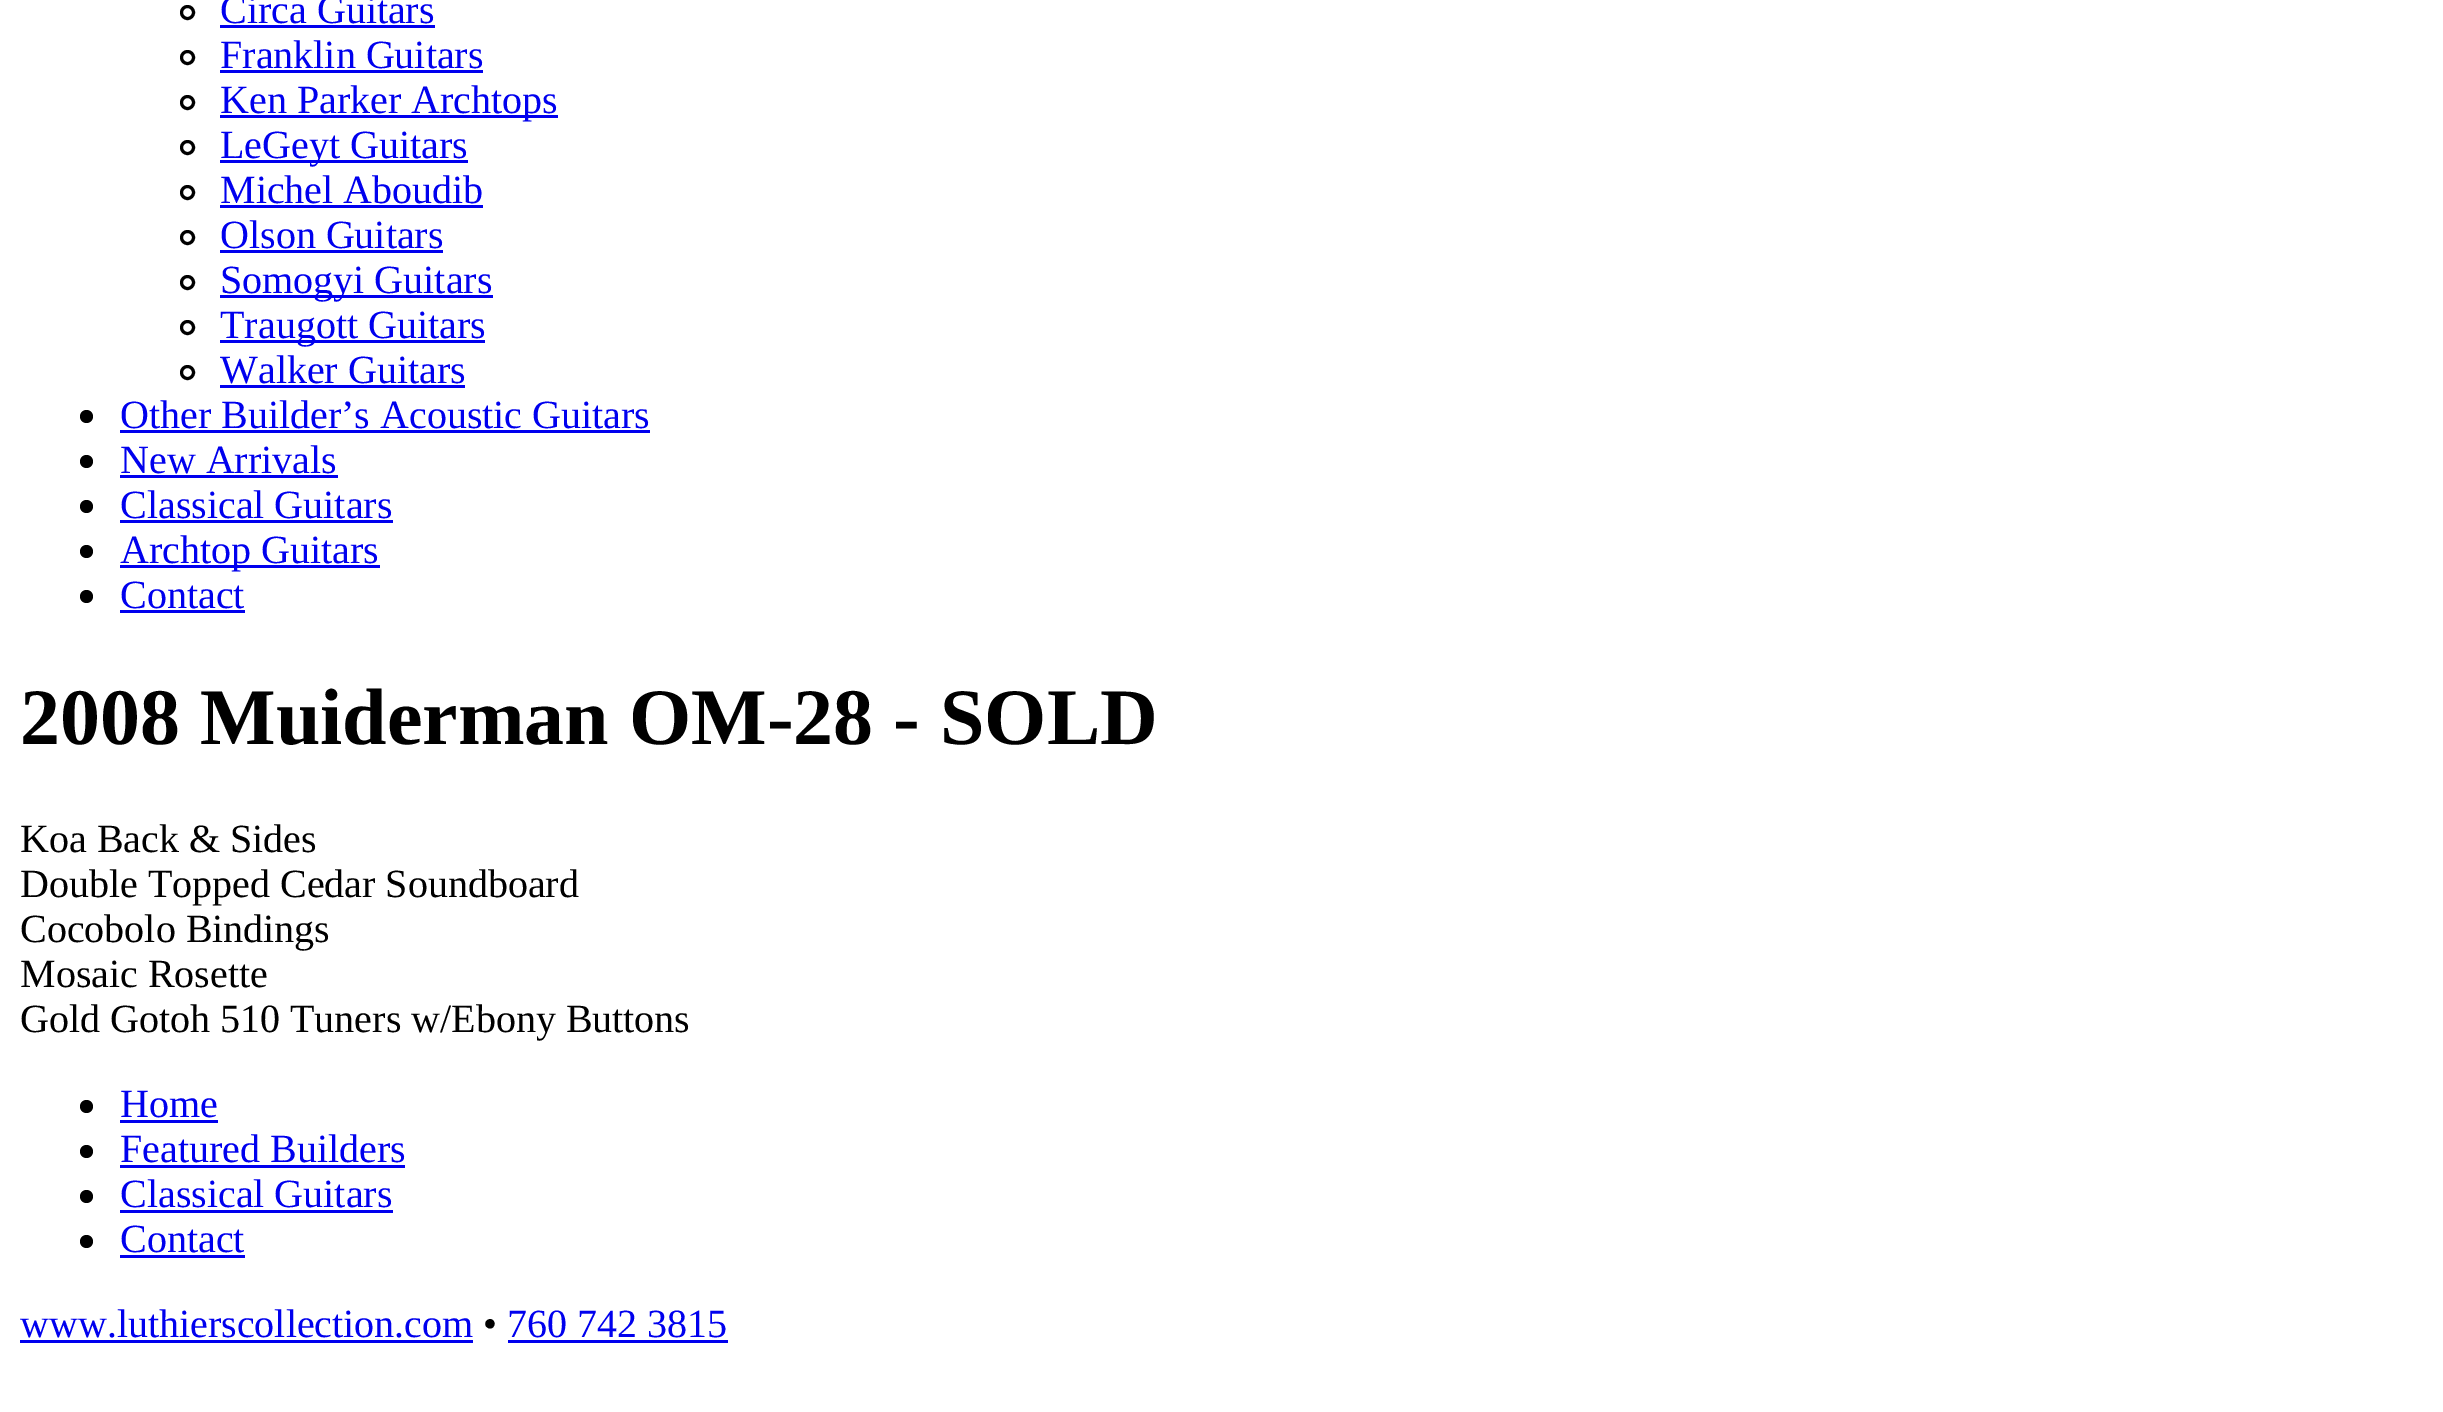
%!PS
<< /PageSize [2443 1412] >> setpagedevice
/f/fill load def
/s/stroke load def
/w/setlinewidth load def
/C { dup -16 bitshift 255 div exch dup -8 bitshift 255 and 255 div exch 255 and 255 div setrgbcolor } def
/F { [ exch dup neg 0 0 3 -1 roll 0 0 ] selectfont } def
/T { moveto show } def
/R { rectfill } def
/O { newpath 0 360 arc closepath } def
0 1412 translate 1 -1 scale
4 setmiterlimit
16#FFFFFF C
0 0 2443 1412 R
16#000000 C
3 w
187.5 12.5 6 O s
/LiberationSerif-Regular 40 F
16#0000EE C
(Circa Guitars) 220 23 T
220 25 215 3 R
16#000000 C
187.5 57.5 6 O s
16#0000EE C
(Franklin Guitars) 220 68 T
220 70 263 3 R
16#000000 C
187.5 102.5 6 O s
16#0000EE C
220 115 338 3 R
(Ken Parker Archtops) 220 113 T
16#000000 C
187.5 147.5 6 O s
16#0000EE C
220 160 248 3 R
(LeGeyt Guitars) 220 158 T
16#000000 C
187.5 192.5 6 O s
16#0000EE C
(Michel Aboudib) 220 203 T
220 205 263 3 R
16#000000 C
187.5 237.5 6 O s
16#0000EE C
(Olson Guitars) 220 248 T
220 250 223 3 R
16#000000 C
187.5 282.5 6 O s
16#0000EE C
220 295 273 3 R
(Somogyi Guitars) 220 293 T
16#000000 C
187.5 327.5 6 O s
16#0000EE C
220 340 265 3 R
(Traugott Guitars) 220 338 T
16#000000 C
187.5 372.5 6 O s
16#0000EE C
(Walker Guitars) 220 383 T
220 385 245 3 R
16#000000 C
86.5 416.5 6.5 O f
16#0000EE C
(Other Builder’s Acoustic Guitars) 120 428 T
120 430 530 3 R
16#000000 C
86.5 461.5 6.5 O f
16#0000EE C
(New Arrivals) 120 473 T
120 475 218 3 R
16#000000 C
86.5 506.5 6.5 O f
16#0000EE C
(Classical Guitars) 120 518 T
120 520 273 3 R
16#000000 C
86.5 551.5 6.5 O f
16#0000EE C
120 565 260 3 R
(Archtop Guitars) 120 563 T
16#000000 C
86.5 596.5 6.5 O f
16#0000EE C
(Contact) 120 608 T
120 610 125 3 R
/LiberationSerif-Bold 80 F
16#000000 C
(2008 Muiderman OM-28 - SOLD) 20 744 T
/LiberationSerif-Regular 40 F
(Koa Back & Sides) 20 852 T
(Double Topped Cedar Soundboard) 20 897 T
(Cocobolo Bindings) 20 942 T
(Mosaic Rosette) 20 987 T
(Gold Gotoh 510 Tuners w/Ebony Buttons) 20 1032 T
86.5 1106.5 6.5 O f
16#0000EE C
(Home) 120 1117 T
120 1120 98 3 R
16#000000 C
86.5 1151.5 6.5 O f
16#0000EE C
(Featured Builders) 120 1162 T
120 1165 285 3 R
16#000000 C
86.5 1196.5 6.5 O f
16#0000EE C
(Classical Guitars) 120 1207 T
120 1210 273 3 R
16#000000 C
86.5 1241.5 6.5 O f
16#0000EE C
(Contact) 120 1252 T
120 1255 125 3 R
(www.luthierscollection.com) 20 1337 T
20 1340 453 3 R
16#000000 C
(•) 483 1337 T
16#0000EE C
(760 742 3815) 507 1337 T
508 1340 220 3 R
showpage
